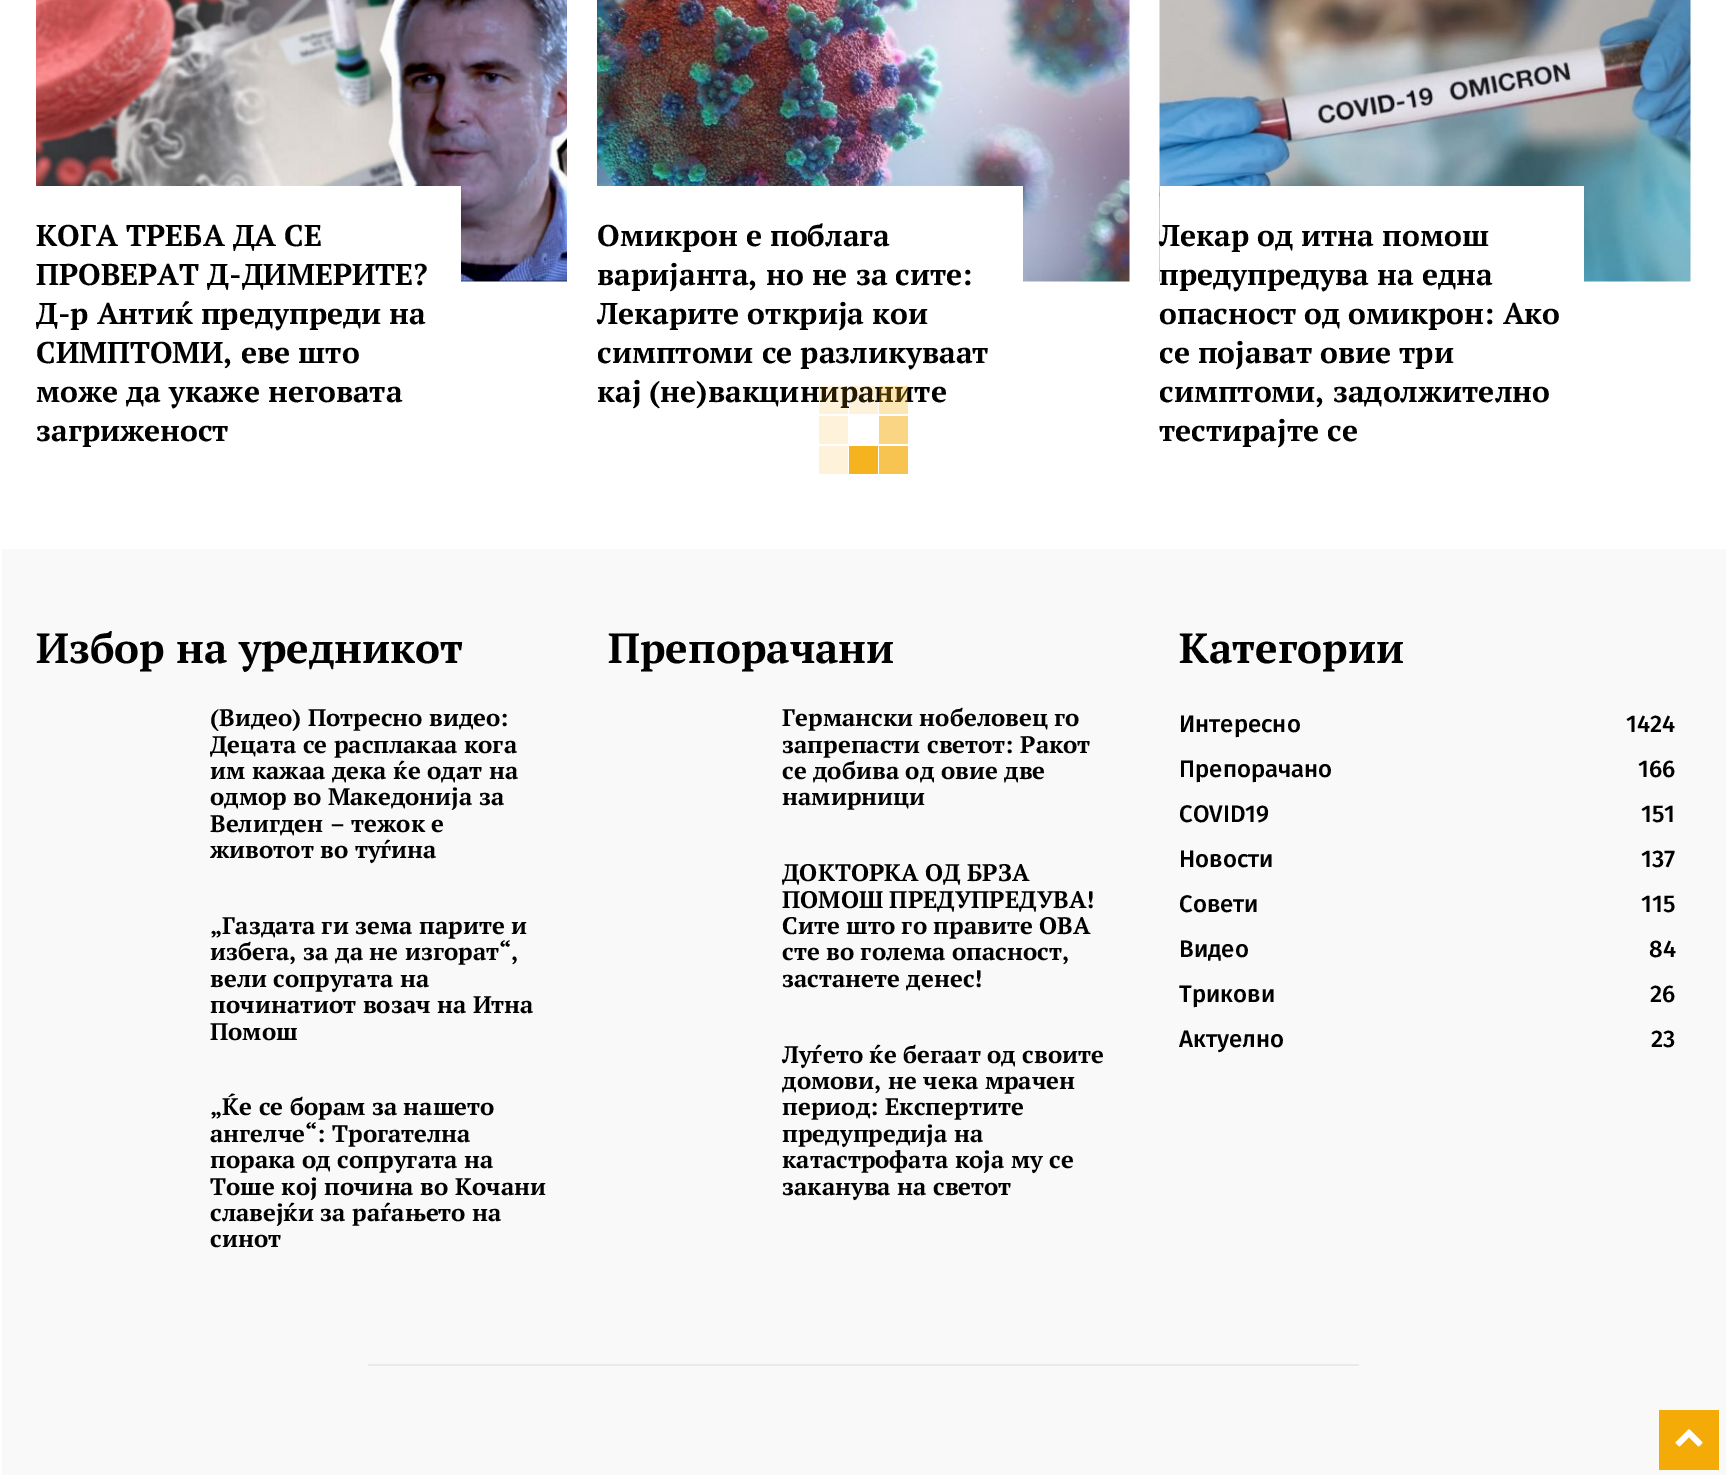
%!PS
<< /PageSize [1726 1475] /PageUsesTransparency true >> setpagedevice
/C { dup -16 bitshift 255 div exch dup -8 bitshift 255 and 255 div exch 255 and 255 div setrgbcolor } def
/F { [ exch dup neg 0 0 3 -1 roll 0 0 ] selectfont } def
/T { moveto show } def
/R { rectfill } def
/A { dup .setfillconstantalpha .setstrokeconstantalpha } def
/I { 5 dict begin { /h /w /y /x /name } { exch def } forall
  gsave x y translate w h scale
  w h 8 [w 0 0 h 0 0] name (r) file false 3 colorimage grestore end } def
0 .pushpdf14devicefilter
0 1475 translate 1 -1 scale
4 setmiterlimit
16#FFFFFF C
0 0 1726 1475 R
(1.rgb) 36 0 531 282 I
36 186 425 96 R
/PTSerif-Bold 30 F
16#000000 C
(КОГА ТРЕБА ДА СЕ) 36 246 T
(ПРОВЕРАТ Д-ДИМЕРИТЕ?) 36 285 T
(Д-р Антиќ предупреди на) 36 324 T
(СИМПТОМИ, еве што) 36 363 T
(може да укаже неговата) 36 402 T
(загриженост) 36 441 T
(2.rgb) 597 0 533 282 I
16#FFFFFF C
597 186 426 96 R
16#000000 C
(Омикрон е поблага) 597 246 T
(варијанта, но не за сите:) 597 285 T
(Лекарите открија кои) 597 324 T
(симптоми се разликуваат) 597 363 T
(кај \(не\)вакцинираните) 597 402 T
(3.rgb) 1159 0 532 282 I
16#FFFFFF C
1160 186 424 96 R
16#000000 C
(Лекар од итна помош) 1159 246 T
(предупредува на една) 1159 285 T
(опасност од омикрон: Ако) 1159 324 T
(се појават овие три) 1159 363 T
(симптоми, задолжително) 1159 402 T
(тестирајте се) 1159 441 T
0.15 A
16#F5AB07 C
819 386 29 28 R
849 386 29 28 R
0.3 A
879 386 29 28 R
1 A
16#FEF2DA C
819 416 29 28 R
16#FAD583 C
879 416 29 28 R
16#FEF2DA C
819 446 29 28 R
16#F6B320 C
849 446 29 28 R
16#F8C451 C
879 446 29 28 R
16#F9F9F9 C
2 549 1724 926 R
/PTSerif-Bold 42 F
16#000000 C
(Избор на уредникот) 36 663 T
/PTSerif-Bold 24 F
(\(Видео\) Потресно видео:) 210 726 T
(Децата се расплакаа кога) 210 753 T
(им кажаа дека ќе одат на) 210 779 T
(одмор во Македонија за) 210 805 T
(Велигден – тежок е) 210 832 T
(животoт во туѓина) 210 858 T
(„Газдата ги зема парите и) 210 934 T
(избега, за да не изгорат“,) 210 960 T
(вели сопругата на) 210 987 T
(починатиот возач на Итна) 210 1013 T
(Помош) 210 1040 T
(„Ќе се борам за нашето) 210 1115 T
(ангелче“: Трогателна) 210 1142 T
(порака од сопругата на) 210 1168 T
(Тоше кој почина во Кочани) 210 1195 T
(славејќи за раѓањето на) 210 1221 T
(синот) 210 1247 T
/PTSerif-Bold 42 F
(Препорачани) 608 663 T
/PTSerif-Bold 24 F
(Германски нобеловец го) 782 726 T
(запрепасти светот: Ракот) 782 753 T
(се добива од овие две) 782 779 T
(намирници) 782 805 T
(ДОКТОРКА ОД БРЗА) 782 881 T
(ПОМОШ ПРЕДУПРЕДУВА!) 782 908 T
(Сите што го правите ОВА) 782 934 T
(сте во голема опасност,) 782 960 T
(застанете денес!) 782 987 T
(Луѓето ќе бегаат од своите) 782 1063 T
(домови, не чека мрачен) 782 1089 T
(период: Експертите) 782 1115 T
(предупредија на) 782 1142 T
(катастрофата која му се) 782 1168 T
(заканува на светот) 782 1195 T
/PTSerif-Bold 42 F
(Категории) 1179 663 T
/FiraSans-Medium 24 F
(Интересно) 1179 732 T
(1424) 1626 732 T
(Препорачано) 1179 777 T
(166) 1638 777 T
(COVID19) 1179 822 T
(151) 1641 822 T
(Новости) 1179 867 T
(137) 1641 867 T
(Совети) 1179 912 T
(115) 1641 912 T
(Видео) 1179 957 T
(84) 1649 957 T
(Трикови) 1179 1002 T
(26) 1650 1002 T
(Актуелно) 1179 1047 T
(23) 1651 1047 T
16#EAEAEA C
368 1364 991 2 R
16#F5AB07 C
1659 1410 60 60 R
(4.rgb) 1675 1429 28 18 I
.poppdf14devicefilter showpage
